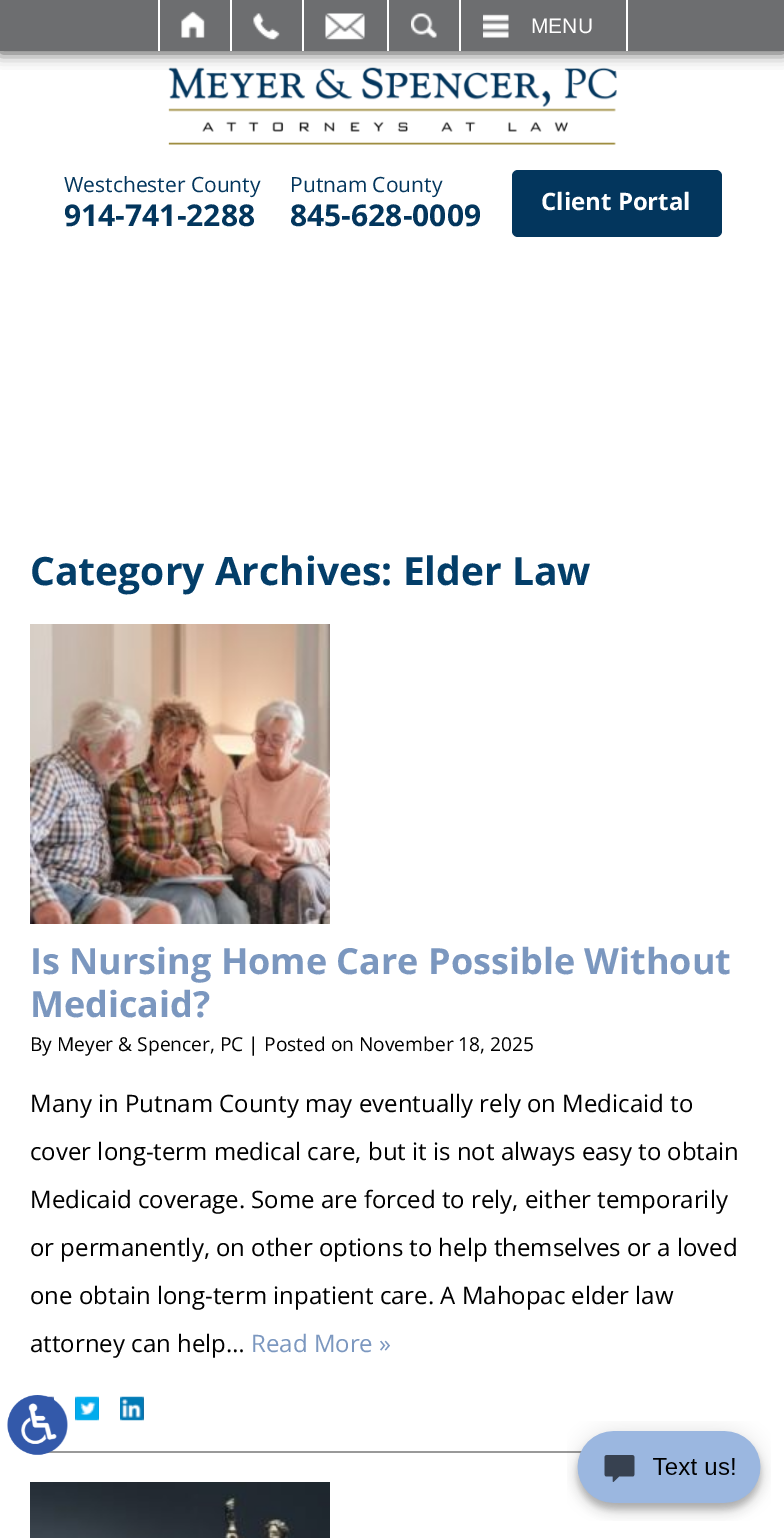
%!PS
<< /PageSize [784 1538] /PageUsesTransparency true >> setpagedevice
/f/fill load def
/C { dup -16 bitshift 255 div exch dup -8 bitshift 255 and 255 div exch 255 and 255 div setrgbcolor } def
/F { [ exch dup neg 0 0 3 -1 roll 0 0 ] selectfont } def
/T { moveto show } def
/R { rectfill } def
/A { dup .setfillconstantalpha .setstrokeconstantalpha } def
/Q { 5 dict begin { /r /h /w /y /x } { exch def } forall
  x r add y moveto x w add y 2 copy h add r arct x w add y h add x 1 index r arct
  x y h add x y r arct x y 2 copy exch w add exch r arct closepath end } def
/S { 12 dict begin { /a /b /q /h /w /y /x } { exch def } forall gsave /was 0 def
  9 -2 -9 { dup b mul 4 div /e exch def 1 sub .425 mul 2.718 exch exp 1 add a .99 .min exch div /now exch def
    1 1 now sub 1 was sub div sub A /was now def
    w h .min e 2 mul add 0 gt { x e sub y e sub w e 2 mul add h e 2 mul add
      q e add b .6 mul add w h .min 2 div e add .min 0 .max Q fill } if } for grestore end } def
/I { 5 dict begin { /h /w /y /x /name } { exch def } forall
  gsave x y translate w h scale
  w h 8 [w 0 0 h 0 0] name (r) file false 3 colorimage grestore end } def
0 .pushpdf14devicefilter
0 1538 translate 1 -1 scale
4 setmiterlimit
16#FFFFFF C
0 0 784 1538 R
(6.rgb) 168 67 449 78 I
16#000000 C
0 2 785 51 0 7.5 .7 S
16#6D6E70 C
0 0 784 51 R
16#FFFFFF C
230 0 2 51 R
158 0 2 51 R
(1.rgb) 181 11 24 27 I
302 0 2 51 R
(2.rgb) 253 13 27 27 I
387 0 2 51 R
(3.rgb) 325 13 40 27 I
459 0 2 51 R
(4.rgb) 411 13 26 25 I
626 0 2 51 R
(5.rgb) 483 14 26 24 I
/LiberationSans-Regular 21 F
(MENU) 531 33 T
/OpenSans-Regular 21 F
16#03365D C
(Westchester County) 64 192 T
/OpenSans-Bold 30 F
(914-741-2288) 64 226 T
/OpenSans-Regular 21 F
(Putnam County) 290 192 T
/OpenSans-Bold 30 F
(845-628-0009) 290 226 T
512 170 210 67 6 Q f
/OpenSans-Bold 24 F
16#FFFFFF C
(Client Portal) 541 210 T
/OpenSans-Bold 39 F
16#033E69 C
(Category Archives: Elder Law) 30 585 T
16#999999 C
46 1451 536 2 R
(7.rgb) 30 624 300 300 I
/OpenSans-Bold 36 F
16#7B97BF C
(Is Nursing Home Care Possible Without) 30 974 T
(Medicaid?) 30 1017 T
/OpenSans-Regular 19.2 F
16#000000 C
(By Meyer & Spencer, PC | Posted on November 18, 2025) 30 1051 T
/OpenSans-Regular 24 F
(Many in Putnam County may eventually rely on Medicaid to) 30 1112 T
(cover long-term medical care, but it is not always easy to obtain) 30 1160 T
(Medicaid coverage. Some are forced to rely, either temporarily) 30 1208 T
(or permanently, on other options to help themselves or a loved) 30 1256 T
(one obtain long-term inpatient care. A Mahopac elder law) 30 1304 T
(attorney can help…) 30 1352 T
16#7B97BF C
(Read More ») 251 1352 T
(8.rgb) 30 1396 24 5 I
(9.rgb) 75 1396 24 25 I
(10.rgb) 120 1396 24 25 I
(11.rgb) 30 1482 300 56 I
(12.rgb) 7 1395 61 60 I
(13.rgb) 567 1421 204 100 I
.poppdf14devicefilter showpage
